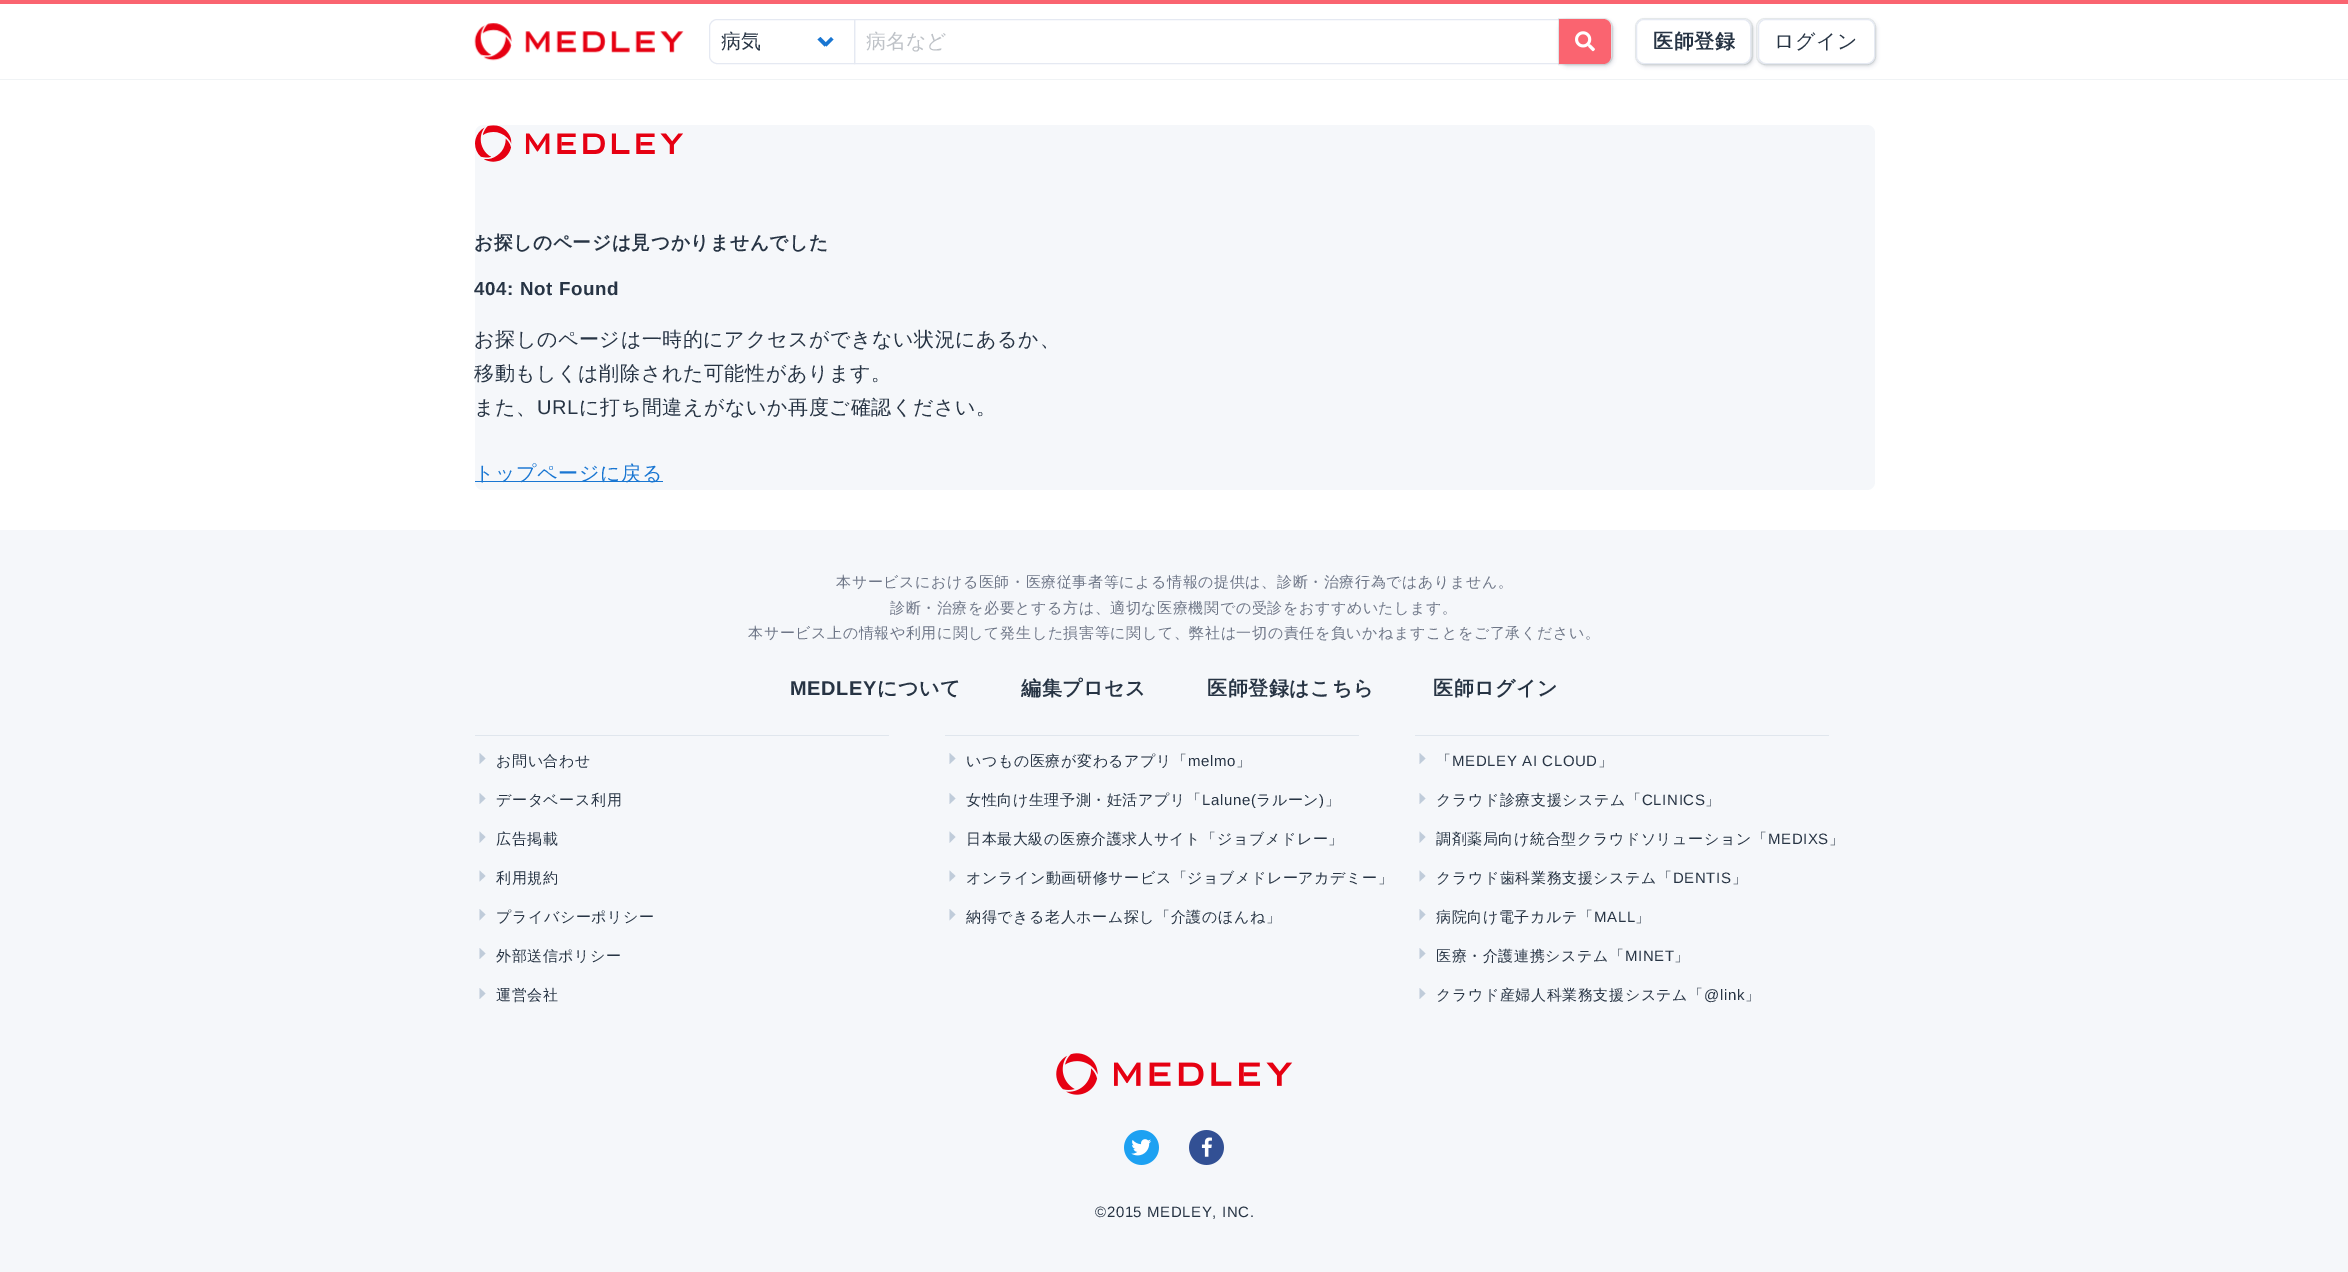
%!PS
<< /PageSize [2348 1272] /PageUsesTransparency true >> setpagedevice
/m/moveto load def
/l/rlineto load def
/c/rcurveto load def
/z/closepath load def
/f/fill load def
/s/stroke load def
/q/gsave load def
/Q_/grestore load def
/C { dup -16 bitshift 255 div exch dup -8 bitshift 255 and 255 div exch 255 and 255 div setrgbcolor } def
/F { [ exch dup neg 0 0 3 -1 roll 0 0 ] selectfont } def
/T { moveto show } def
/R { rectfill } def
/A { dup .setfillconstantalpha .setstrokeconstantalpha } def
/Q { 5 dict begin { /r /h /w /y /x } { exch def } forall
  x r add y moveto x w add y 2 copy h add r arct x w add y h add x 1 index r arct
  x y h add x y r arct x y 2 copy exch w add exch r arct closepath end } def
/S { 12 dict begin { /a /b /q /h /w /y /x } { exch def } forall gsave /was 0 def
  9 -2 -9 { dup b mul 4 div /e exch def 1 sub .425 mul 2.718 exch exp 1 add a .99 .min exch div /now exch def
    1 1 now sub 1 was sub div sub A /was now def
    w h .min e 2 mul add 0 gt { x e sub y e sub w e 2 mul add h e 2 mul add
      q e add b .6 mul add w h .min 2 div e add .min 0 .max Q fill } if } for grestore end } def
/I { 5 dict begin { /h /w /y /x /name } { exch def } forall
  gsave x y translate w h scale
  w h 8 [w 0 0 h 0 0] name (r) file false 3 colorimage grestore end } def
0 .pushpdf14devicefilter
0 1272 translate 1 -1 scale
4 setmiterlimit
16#FFFFFF C
0 0 2348 1272 R
16#FA6470 C
0 0 2348 4 R
(1.rgb) 474 23 210 38 I
16#E5E9F2 C
717 19.5 m 137.5 0 l 0 44 l -137.5 0 l -4 0 -7.5 -3.5 -7.5 -7.5 c 0 -29 l 0 -4 3.5 -7.5 7.5 -7.5 c z s
/WenQuanYiZenHei-Medium 20 F
16#273444 C
(病気) 721 48 T
16#1976D2 C
824 44 m 7 -7 l 2.5 2.5 l -7 7 l z f
817.5 39.5 m 3 -2.5 l 7 7 l -3 2.5 l z f
16#E5E9F2 C
854.5 19.5 705 44 rectstroke
16#BEC2C7 C
(病名など) 866 48 T
0.1 A
16#273444 C
1558.5 18.5 m 45.5 0 l 4.5 0 8.5 4 8.5 8.5 c 0 29 l 0 4.5 -4 8.5 -8.5 8.5 c -45.5 0 l z s
1 A
1560 21 53 45 8 2 .2 S
16#FA6470 C
1559 19 m 44 0 l 4.5 0 8 3.5 8 8 c 0 29 l 0 4.5 -3.5 8 -8 8 c -44 0 l z f
(2.rgb) 1575 31 20 21 I
16#E9EBEC C
1635.5 18.5 117 46 8.5 Q s
16#273444 C
1638 21 115 45 8 2 .2 S
16#FFFFFF C
1636.5 19.5 114 44 7.5 Q q f Q_
16#E5E9F2 C
s
/WenQuanYiZenHei-Bold 20 F
16#273444 C
1653 48 m .6 0 (医師登録) ashow
16#E9EBEC C
1756.5 18.5 119 46 8.5 Q s
16#273444 C
1759 21 117 45 8 2 .2 S
16#FFFFFF C
1758.5 19.5 116 44 7.5 Q q f Q_
16#E5E9F2 C
s
/WenQuanYiZenHei-Medium 20 F
16#273444 C
1774 48 m .6 0 (ログイン) ashow
16#F0F3F5 C
0 79 2348 1 R
16#F5F7FA C
475 125 1400 365 8 Q f
(3.rgb) 475 125 208 37 I
/WenQuanYiZenHei-Bold 18.75 F
16#273444 C
474 249 m .6 0 (お探しのページは見つかりませんでした) ashow
/LiberationSans-Bold 18.75 F
474 295 m .6 0 (404: Not Found) ashow
/WenQuanYiZenHei-Medium 20 F
474 346 m .6 0 (お探しのページは一時的にアクセスができない状況にあるか、) ashow
474 380 m .6 0 (移動もしくは削除された可能性があります。) ashow
474 414 m .6 0 (また、) ashow
/LiberationSans-Regular 20 F
537 414 m .6 0 (URL) ashow
/WenQuanYiZenHei-Medium 20 F
579 414 m .6 0 (に打ち間違えがないか再度ご確認ください。) ashow
16#1976D2 C
475 481 188 1 R
474 480 m .6 0 (トップページに戻る) ashow
16#F5F7FA C
0 530 2348 742 R
/WenQuanYiZenHei-Medium 15 F
16#6E7687 C
836 587 m .6 0 (本サービスにおける医師・医療従事者等による情報の提供は、診断・治療行為ではありません。) ashow
890 613 m .6 0 (診断・治療を必要とする方は、適切な医療機関での受診をおすすめいたします。) ashow
748 638 m .6 0 (本サービス上の情報や利用に関して発生した損害等に関して、弊社は一切の責任を負いかねますことをご了承ください。) ashow
/LiberationSans-Bold 20 F
16#273444 C
790 695 m .6 0 (MEDLEY) ashow
/WenQuanYiZenHei-Bold 20 F
877 695 m .6 0 (について) ashow
1021 695 m .6 0 (編集プロセス) ashow
1207 695 m .6 0 (医師登録はこちら) ashow
1433 695 m .6 0 (医師ログイン) ashow
16#E0E6ED C
475 735 414 1 R
16#C0CCDA C
479.5 764 m 0 -11 l 6 5.5 l z f
/WenQuanYiZenHei-Medium 15 F
16#273444 C
496 766 m .6 0 (お問い合わせ) ashow
16#C0CCDA C
479.5 804 m 0 -11 l 6 5.5 l z f
16#273444 C
496 805 m .6 0 (データベース利用) ashow
16#C0CCDA C
479.5 843 m 0 -11.5 l 6 5.5 l z f
16#273444 C
496 844 m .6 0 (広告掲載) ashow
16#C0CCDA C
479.5 881.5 m 0 -11 l 6 5.5 l z f
16#273444 C
496 883 m .6 0 (利用規約) ashow
16#C0CCDA C
479.5 920.5 m 0 -11.5 l 6 5.5 l z f
16#273444 C
496 922 m .6 0 (プライバシーポリシー) ashow
16#C0CCDA C
479.5 959 m 0 -11 l 6 5.5 l z f
16#273444 C
496 961 m .6 0 (外部送信ポリシー) ashow
16#C0CCDA C
479.5 999 m 0 -11 l 6 5.5 l z f
16#273444 C
496 1000 m .6 0 (運営会社) ashow
16#E0E6ED C
945 735 414 1 R
16#C0CCDA C
949.5 764 m 0 -11 l 6 5.5 l z f
16#273444 C
966 766 m .6 0 (いつもの医療が変わるアプリ「) ashow
/LiberationSans-Regular 15 F
1188 766 m .6 0 (melmo) ashow
/WenQuanYiZenHei-Medium 15 F
1236 766 m .6 0 (」) ashow
16#C0CCDA C
949.5 804 m 0 -11 l 6 5.5 l z f
16#273444 C
966 805 m .6 0 (女性向け生理予測・妊活アプリ「) ashow
/LiberationSans-Regular 15 F
1202 805 m .6 0 (Lalune\() ashow
/WenQuanYiZenHei-Medium 15 F
1256 805 m .6 0 (ラルーン) ashow
/LiberationSans-Regular 15 F
1319 805 m .6 0 (\)) ashow
/WenQuanYiZenHei-Medium 15 F
1325 805 m .6 0 (」) ashow
16#C0CCDA C
949.5 843 m 0 -11.5 l 6 5.5 l z f
16#273444 C
966 844 m .6 0 (日本最大級の医療介護求人サイト「ジョブメドレー」) ashow
16#C0CCDA C
949.5 881.5 m 0 -11 l 6 5.5 l z f
16#273444 C
966 883 m .6 0 (オンライン動画研修サービス「ジョブメドレーアカデミー」) ashow
16#C0CCDA C
949.5 920.5 m 0 -11.5 l 6 5.5 l z f
16#273444 C
966 922 m .6 0 (納得できる老人ホーム探し「介護のほんね」) ashow
16#E0E6ED C
1415 735 414 1 R
16#C0CCDA C
1419.5 764 m 0 -11 l 6 5.5 l z f
16#273444 C
1436 766 m .6 0 (「) ashow
/LiberationSans-Regular 15 F
1452 766 m .6 0 (MEDLEY AI CLOUD) ashow
/WenQuanYiZenHei-Medium 15 F
1598 766 m .6 0 (」) ashow
16#C0CCDA C
1419.5 804 m 0 -11 l 6 5.5 l z f
16#273444 C
1436 805 m .6 0 (クラウド診療支援システム「) ashow
/LiberationSans-Regular 15 F
1642 805 m .6 0 (CLINICS) ashow
/WenQuanYiZenHei-Medium 15 F
1705 805 m .6 0 (」) ashow
16#C0CCDA C
1419.5 843 m 0 -11.5 l 6 5.5 l z f
16#273444 C
1436 844 m .6 0 (調剤薬局向け統合型クラウドソリューション「) ashow
/LiberationSans-Regular 15 F
1768 844 m .6 0 (MEDIXS) ashow
/WenQuanYiZenHei-Medium 15 F
1829 844 m .6 0 (」) ashow
16#C0CCDA C
1419.5 881.5 m 0 -11 l 6 5.5 l z f
16#273444 C
1436 883 m .6 0 (クラウド歯科業務支援システム「) ashow
/LiberationSans-Regular 15 F
1673 883 m .6 0 (DENTIS) ashow
/WenQuanYiZenHei-Medium 15 F
1732 883 m .6 0 (」) ashow
16#C0CCDA C
1419.5 920.5 m 0 -11.5 l 6 5.5 l z f
16#273444 C
1436 922 m .6 0 (病院向け電子カルテ「) ashow
/LiberationSans-Regular 15 F
1594 922 m .6 0 (MALL) ashow
/WenQuanYiZenHei-Medium 15 F
1635 922 m .6 0 (」) ashow
16#C0CCDA C
1419.5 959 m 0 -11 l 6 5.5 l z f
16#273444 C
1436 961 m .6 0 (医療・介護連携システム「) ashow
/LiberationSans-Regular 15 F
1625 961 m .6 0 (MINET) ashow
/WenQuanYiZenHei-Medium 15 F
1674 961 m .6 0 (」) ashow
16#C0CCDA C
1419.5 999 m 0 -11 l 6 5.5 l z f
16#273444 C
1436 1000 m .6 0 (クラウド産婦人科業務支援システム「) ashow
/LiberationSans-Regular 15 F
1704 1000 m .6 0 (@link) ashow
/WenQuanYiZenHei-Medium 15 F
1745 1000 m .6 0 (」) ashow
(4.rgb) 1056 1053 237 42 I
(5.rgb) 1124 1130 35 35 I
(6.rgb) 1189 1130 35 35 I
/LiberationSans-Regular 15 F
1095 1217 m .6 0 (©2015 MEDLEY, INC.) ashow
.poppdf14devicefilter showpage
